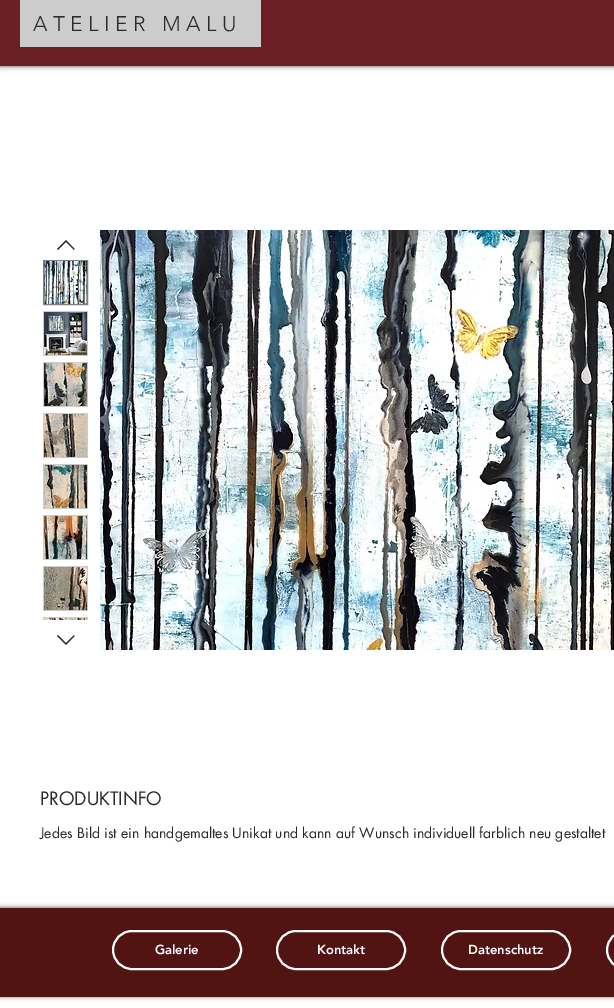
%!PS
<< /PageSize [614 1008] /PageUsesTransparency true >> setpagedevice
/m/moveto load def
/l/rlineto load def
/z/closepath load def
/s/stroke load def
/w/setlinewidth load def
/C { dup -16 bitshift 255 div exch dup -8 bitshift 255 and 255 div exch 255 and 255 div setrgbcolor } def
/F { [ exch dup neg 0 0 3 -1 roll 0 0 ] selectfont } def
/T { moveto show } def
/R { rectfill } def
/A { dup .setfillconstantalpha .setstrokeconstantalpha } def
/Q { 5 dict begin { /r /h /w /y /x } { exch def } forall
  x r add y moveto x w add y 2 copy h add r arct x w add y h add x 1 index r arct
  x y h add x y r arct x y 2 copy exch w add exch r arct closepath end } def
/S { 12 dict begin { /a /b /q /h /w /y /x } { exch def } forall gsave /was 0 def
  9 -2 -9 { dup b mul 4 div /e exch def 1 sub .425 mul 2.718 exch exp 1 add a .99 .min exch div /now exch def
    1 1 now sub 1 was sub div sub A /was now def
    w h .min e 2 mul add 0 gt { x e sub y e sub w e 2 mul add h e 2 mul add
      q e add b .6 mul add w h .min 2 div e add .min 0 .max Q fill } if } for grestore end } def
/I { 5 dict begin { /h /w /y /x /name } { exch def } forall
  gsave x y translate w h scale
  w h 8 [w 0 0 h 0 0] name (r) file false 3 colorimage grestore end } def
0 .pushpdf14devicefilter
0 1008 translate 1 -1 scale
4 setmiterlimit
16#FFFFFF C
0 0 614 1008 R
16#000000 C
0 0 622 66 0 2.5 .7 S
16#6B1E23 C
0 0 614 66 R
16#CCCCCC C
20 0 241 47 R
/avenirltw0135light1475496-Light 21 F
16#2A2A2A C
33 31 m 5.5 0 (ATELIER MALU) ashow
66 240 m 8.5 9 l -.5 1 l -8 -8 l -8 8 l -1 -1 l z eofill
16#808080 C
43.5 260.5 44 44 rectstroke
(1.rgb) 44 261 43 43 I
16#CCCCCC C
43 311 45 45 R
(2.rgb) 44 312 43 43 I
43 362 45 45 R
(3.rgb) 44 363 43 43 I
43 413 45 45 R
(4.rgb) 44 414 43 43 I
43 464 45 45 R
(5.rgb) 44 465 43 43 I
43 515 45 45 R
(6.rgb) 44 516 43 43 I
43 566 45 45 R
(7.rgb) 44 567 43 43 I
43 617 45 3 R
(8.rgb) 44 618 43 2 I
16#2A2A2A C
74 635 m .5 1 l -8.5 9 l -9 -9 l 1 -1 l 8 8 l z eofill
(9.rgb) 100 230 514 420 I
/futura-Regular 18 F
(PRODUKTINFO) 40 805 T
/futura-Regular 14 F
(Jedes Bild ist ein handgemaltes Unikat und kann auf Wunsch individuell farblich neu gestaltet) 40 838 T
16#000000 C
0 908 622 88 0 2.5 .7 S
16#521313 C
0 908 614 89 R
16#FCFCFC C
2 w
113 931 128 38 19 Q s
/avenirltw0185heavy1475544-Black 13 F
(Galerie) 155 954 T
277 931 128 38 19 Q s
(Kontakt) 317 954 T
442 931 128 38 19 Q s
(Datenschutz) 468 954 T
607 931 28 38 19 Q s
.poppdf14devicefilter showpage
